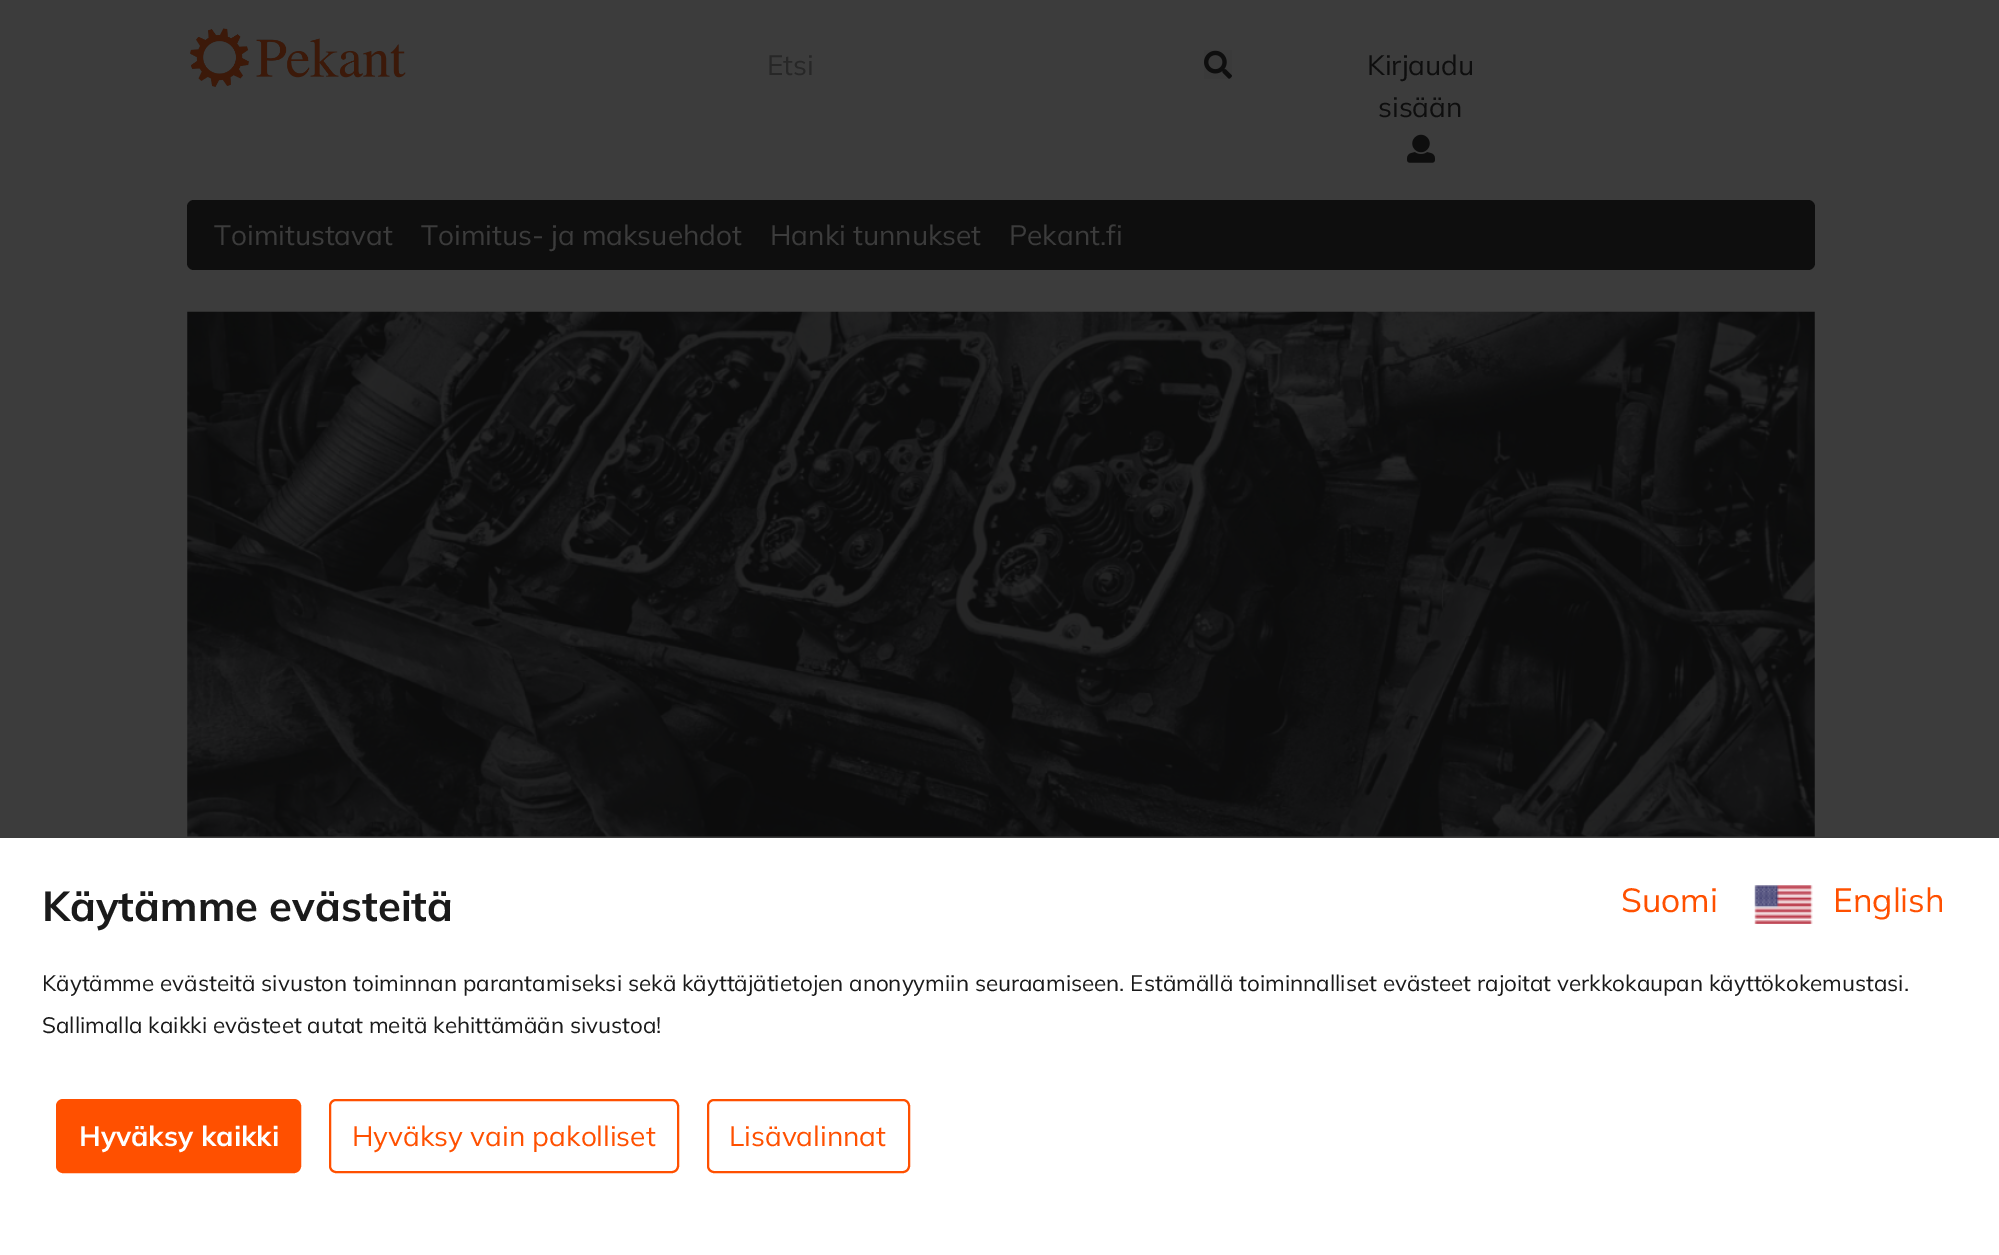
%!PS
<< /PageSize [1999 1255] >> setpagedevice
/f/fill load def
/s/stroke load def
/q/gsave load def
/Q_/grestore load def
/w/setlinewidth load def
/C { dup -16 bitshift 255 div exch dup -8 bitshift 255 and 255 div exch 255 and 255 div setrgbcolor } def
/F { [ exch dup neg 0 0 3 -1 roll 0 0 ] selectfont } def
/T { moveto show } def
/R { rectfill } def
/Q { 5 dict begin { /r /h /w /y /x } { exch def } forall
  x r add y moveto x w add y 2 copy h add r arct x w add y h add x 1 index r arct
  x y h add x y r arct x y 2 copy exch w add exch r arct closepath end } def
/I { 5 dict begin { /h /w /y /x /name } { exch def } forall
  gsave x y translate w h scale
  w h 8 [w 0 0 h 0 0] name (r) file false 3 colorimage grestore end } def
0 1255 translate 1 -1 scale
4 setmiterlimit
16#3C3C3C C
0 0 1999 1255 R
(1.rgb) 190 28 216 59 I
/Mulish-Regular 28 F
16#272727 C
(Etsi) 767 75 T
(2.rgb) 1204 50 28 29 I
16#0E0E0E C
(Kirjaudu) 1367 75 T
(sisään) 1378 117 T
(3.rgb) 1407 134 28 29 I
187 200 1628 70 7 Q f
16#3C3C3C C
(Toimitustavat) 214 245 T
(Toimitus- ja maksuehdot) 421 245 T
(Hanki tunnukset) 770 245 T
(Pekant.fi) 1009 245 T
(4.rgb) 187 311 1628 526 I
16#FFFFFF C
0 838 1999 417 R
/Mulish-Bold 41.75 F
16#1A1A1A C
(Käytämme evästeitä) 42 921 T
/Mulish-Regular 33.5 F
16#FF5000 C
(Suomi) 1621 912 T
(5.rgb) 1754 885 59 39 I
(English) 1833 912 T
/Mulish-Regular 22.4 F
16#1A1A1A C
(Käytämme evästeitä sivuston toiminnan parantamiseksi sekä käyttäjätietojen anonyymiin seuraamiseen. Estämällä toiminnalliset evästeet rajoitat verkkokaupan käyttökokemustasi.) 42 991 T
(Sallimalla kaikki evästeet autat meitä kehittämään sivustoa!) 42 1033 T
16#FF5000 C
57 1100 243 72 6 Q q f Q_
2 w
s
/Mulish-Bold 28 F
16#FFFFFF C
(Hyväksy kaikki) 79 1146 T
16#FF5000 C
330 1100 348 72 6 Q s
/Mulish-Regular 28 F
(Hyväksy vain pakolliset) 352 1146 T
708 1100 201 72 6 Q s
(Lisävalinnat) 729 1146 T
showpage
